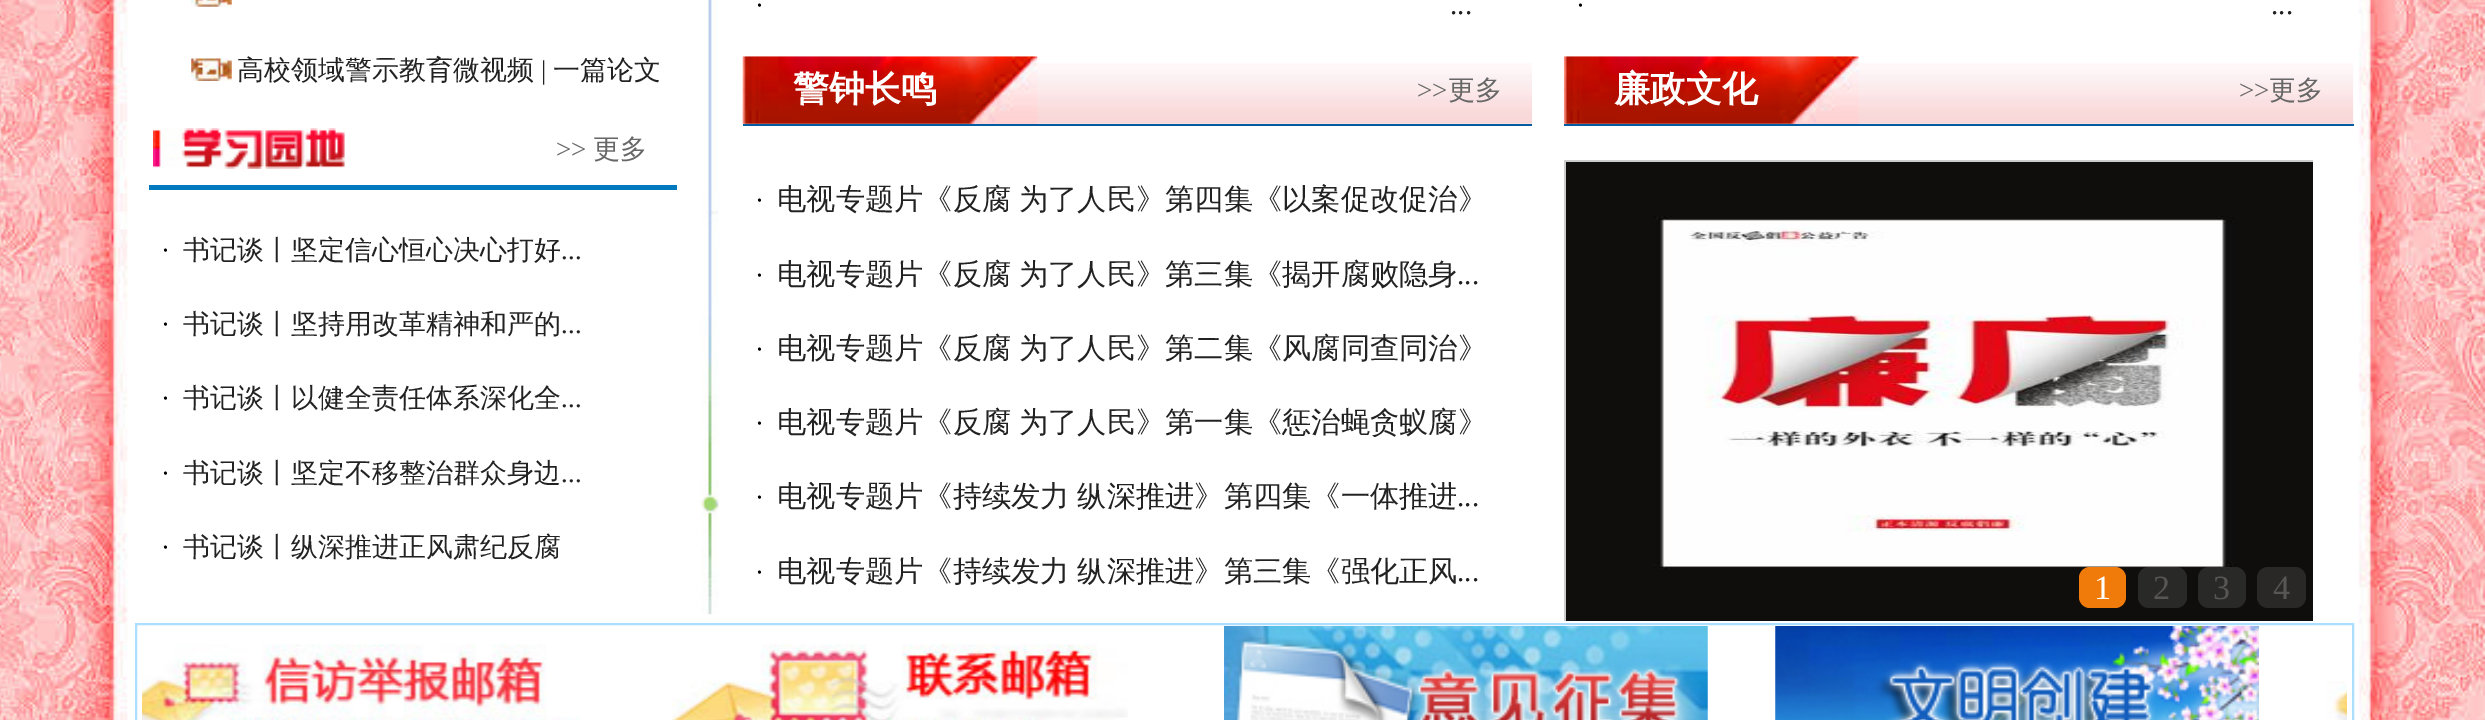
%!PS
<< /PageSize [2485 720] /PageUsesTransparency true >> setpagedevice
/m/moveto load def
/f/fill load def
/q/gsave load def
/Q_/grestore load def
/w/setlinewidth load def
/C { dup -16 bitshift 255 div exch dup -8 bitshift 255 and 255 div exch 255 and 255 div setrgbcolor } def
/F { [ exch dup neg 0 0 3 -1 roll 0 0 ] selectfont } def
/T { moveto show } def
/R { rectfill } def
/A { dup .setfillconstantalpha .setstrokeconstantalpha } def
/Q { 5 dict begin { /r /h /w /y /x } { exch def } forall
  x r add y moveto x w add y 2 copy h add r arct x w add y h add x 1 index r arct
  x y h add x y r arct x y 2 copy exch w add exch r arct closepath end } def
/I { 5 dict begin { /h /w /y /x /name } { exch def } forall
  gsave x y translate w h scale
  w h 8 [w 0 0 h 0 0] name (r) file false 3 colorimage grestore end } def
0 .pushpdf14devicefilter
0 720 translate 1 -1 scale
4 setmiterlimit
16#FFFFFF C
0 0 2485 720 R
(1.rgb) 0 0 2485 720 I
(2.rgb) 191 0 41 7 I
(3.rgb) 191 58 41 23 I
/WenQuanYiZenHei-Medium 27 F
16#222222 C
(高校领域警示教育微视频) 237 79 T
/LiberationSerif-Regular 27 F
(|) 541 79 T
/WenQuanYiZenHei-Medium 27 F
(一篇论文) 553 79 T
16#0079BE C
149 185 528 5 R
(4.rgb) 153 128 193 41 I
/LiberationSerif-Regular 27 F
16#676767 C
(>>) 556 158 T
/WenQuanYiZenHei-Medium 27 F
(更多) 593 158 T
/LiberationSerif-Regular 27 F
16#000000 C
(·) 161 259 T
/WenQuanYiZenHei-Medium 27 F
16#222222 C
(书记谈丨坚定信心恒心决心打好) 183 259 T
/LiberationSerif-Regular 27 F
(...) 561 259 T
16#000000 C
(·) 161 333 T
/WenQuanYiZenHei-Medium 27 F
16#222222 C
(书记谈丨坚持用改革精神和严的) 183 333 T
/LiberationSerif-Regular 27 F
(...) 561 333 T
16#000000 C
(·) 161 407 T
/WenQuanYiZenHei-Medium 27 F
16#222222 C
(书记谈丨以健全责任体系深化全) 183 407 T
/LiberationSerif-Regular 27 F
(...) 561 407 T
16#000000 C
(·) 161 482 T
/WenQuanYiZenHei-Medium 27 F
16#222222 C
(书记谈丨坚定不移整治群众身边) 183 482 T
/LiberationSerif-Regular 27 F
(...) 561 482 T
16#000000 C
(·) 161 556 T
/WenQuanYiZenHei-Medium 27 F
16#222222 C
(书记谈丨纵深推进正风肃纪反腐) 183 556 T
(5.rgb) 700 0 19 615 I
/LiberationSerif-Regular 27 F
16#000000 C
(·) 755 14 T
/LiberationSerif-Regular 29.25 F
16#222222 C
(...) 1450 14 T
/LiberationSerif-Regular 27 F
16#000000 C
(·) 1576 14 T
/LiberationSerif-Regular 29.25 F
16#222222 C
(...) 2271 14 T
(6.rgb) 742 63 790 61 I
16#045BA1 C
743 124 789 2 R
(7.rgb) 742 56 296 68 I
/WenQuanYiZenHei-Bold 36 F
16#FFFFFF C
(警钟长鸣) 793 101 T
/LiberationSerif-Regular 27 F
16#676767 C
(>>) 1417 99 T
/WenQuanYiZenHei-Medium 27 F
(更多) 1448 99 T
/LiberationSerif-Regular 27 F
16#000000 C
(·) 755 209 T
/WenQuanYiZenHei-Medium 29.25 F
16#222222 C
777 209 m -1 0 32 (电视专题片《反腐 为了人民》第四集《以案促改促治》) widthshow
/LiberationSerif-Regular 27 F
16#000000 C
(·) 755 284 T
/WenQuanYiZenHei-Medium 29.25 F
16#222222 C
777 284 m -1 0 32 (电视专题片《反腐 为了人民》第三集《揭开腐败隐身) widthshow
/LiberationSerif-Regular 29.25 F
(...) 1457 284 T
/LiberationSerif-Regular 27 F
16#000000 C
(·) 755 358 T
/WenQuanYiZenHei-Medium 29.25 F
16#222222 C
777 358 m -1 0 32 (电视专题片《反腐 为了人民》第二集《风腐同查同治》) widthshow
/LiberationSerif-Regular 27 F
16#000000 C
(·) 755 432 T
/WenQuanYiZenHei-Medium 29.25 F
16#222222 C
777 432 m -1 0 32 (电视专题片《反腐 为了人民》第一集《惩治蝇贪蚁腐》) widthshow
/LiberationSerif-Regular 27 F
16#000000 C
(·) 755 506 T
/WenQuanYiZenHei-Medium 29.25 F
16#222222 C
777 506 m -1 0 32 (电视专题片《持续发力 纵深推进》第四集《一体推进) widthshow
/LiberationSerif-Regular 29.25 F
(...) 1457 506 T
/LiberationSerif-Regular 27 F
16#000000 C
(·) 755 581 T
/WenQuanYiZenHei-Medium 29.25 F
16#222222 C
777 581 m -1 0 32 (电视专题片《持续发力 纵深推进》第三集《强化正风) widthshow
/LiberationSerif-Regular 29.25 F
(...) 1457 581 T
(8.rgb) 1564 63 790 61 I
16#045BA1 C
1564 124 790 2 R
(9.rgb) 1563 56 296 68 I
/WenQuanYiZenHei-Bold 36 F
16#FFFFFF C
(廉政文化) 1614 101 T
/LiberationSerif-Regular 27 F
16#676767 C
(>>) 2239 99 T
/WenQuanYiZenHei-Medium 27 F
(更多) 2269 99 T
q
1564 160 749 461 rectclip
16#CCCCCC C
2 w
1565 161 756 464 rectstroke
Q_
(10.rgb) 1566 162 747 459 I
16#F17B0A C
2079 567 47 41 11 Q f
/LiberationSerif-Regular 34 F
16#FFFFFF C
(1) 2094 599 T
0.3 A
16#666666 C
2138 567 49 41 11 Q f
1 A
16#575655 C
(2) 2153 599 T
0.3 A
16#666666 C
2198 567 48 41 11 Q f
1 A
16#575655 C
(3) 2213 599 T
16#292827 C
2257 567 49 41 11 Q f
16#575655 C
(4) 2273 599 T
16#ACDEFF C
2 w
136 624 2217 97 rectstroke
(11.rgb) 142 644 438 76 I
(12.rgb) 672 644 456 76 I
(13.rgb) 1224 626 484 94 I
(14.rgb) 1775 626 484 94 I
(15.rgb) 2327 681 20 39 I
.poppdf14devicefilter showpage
